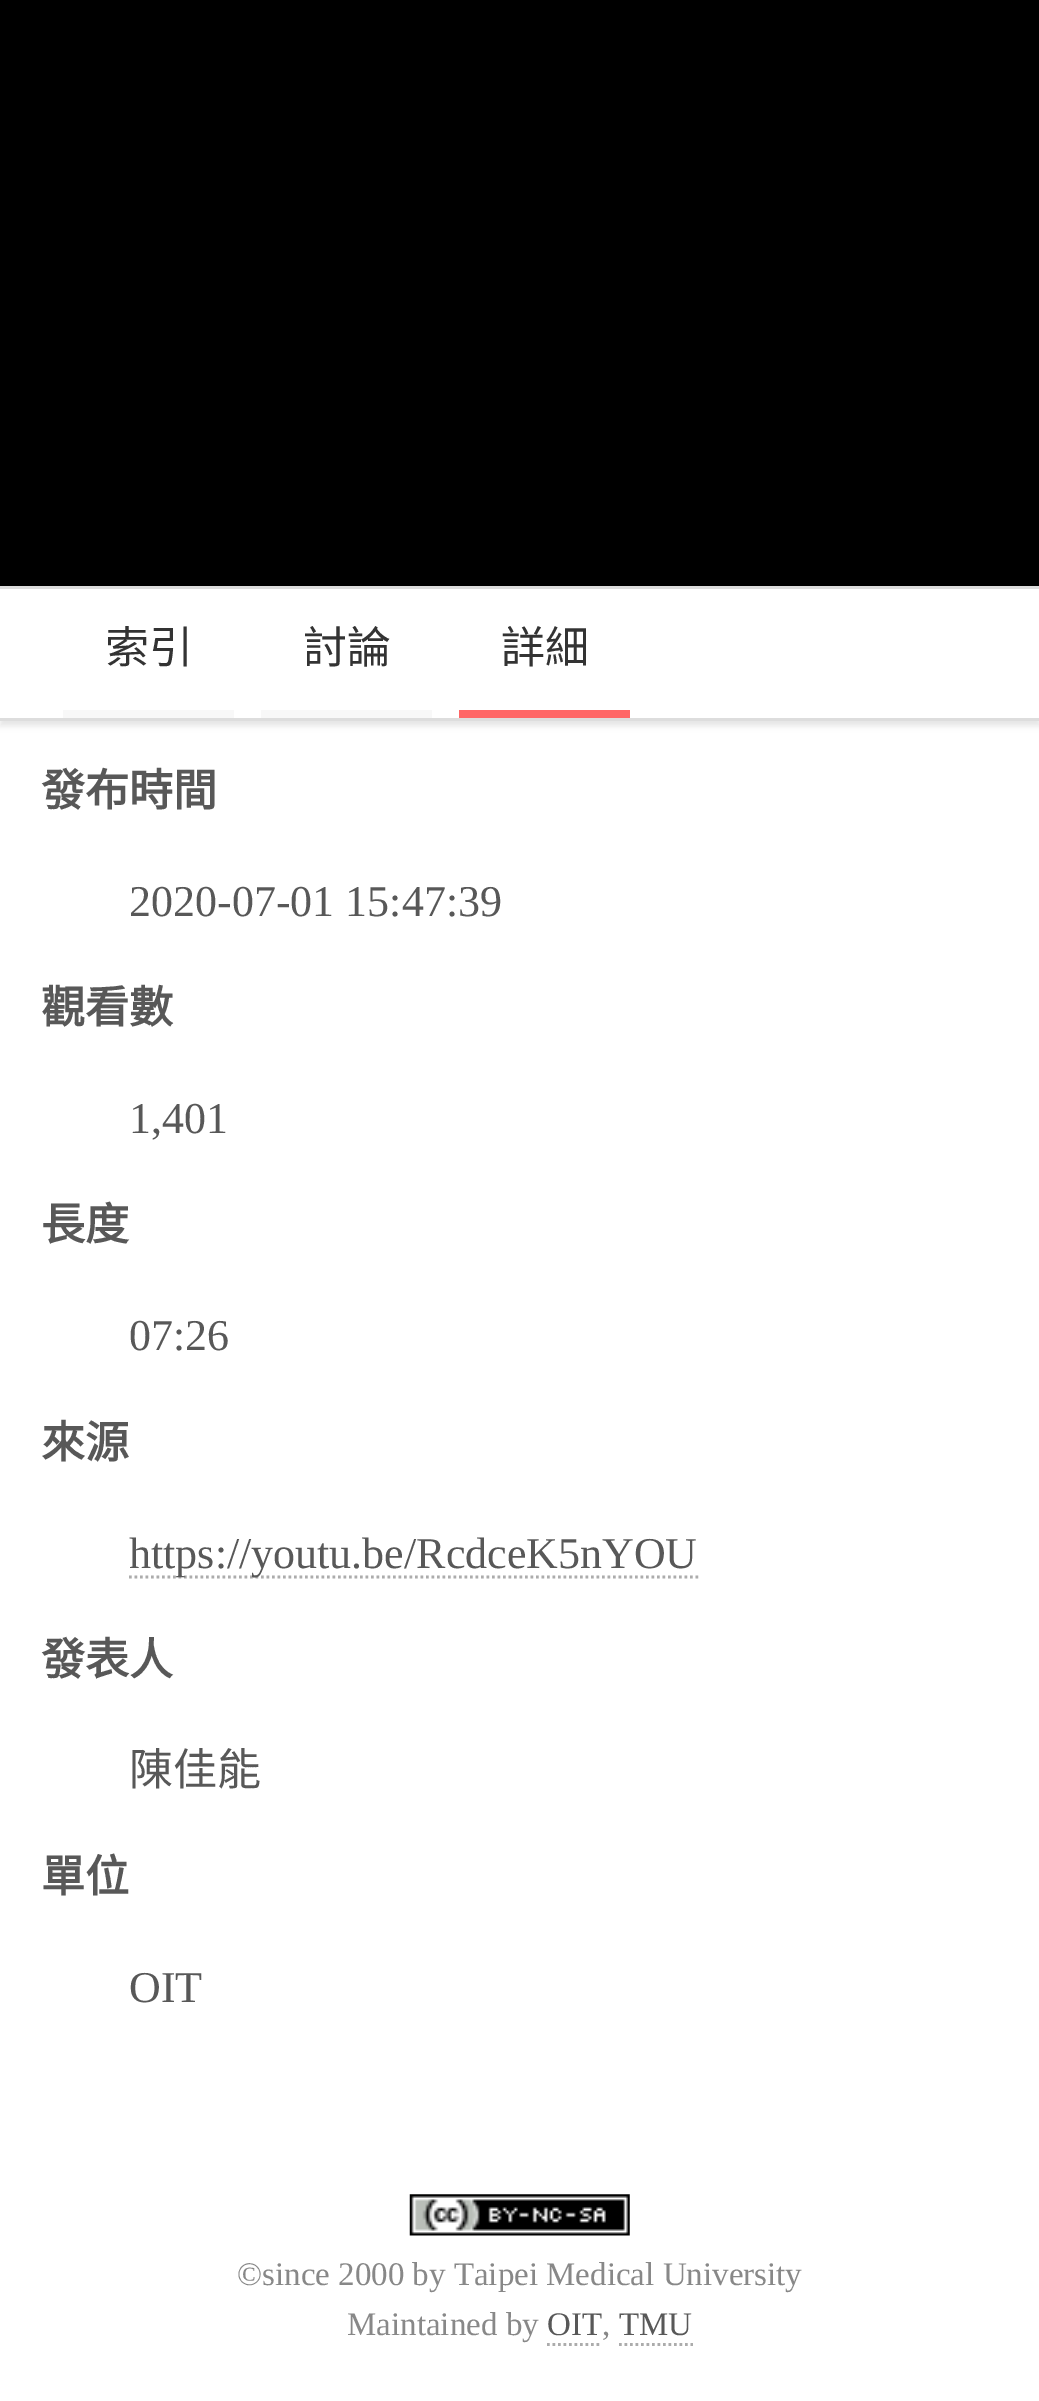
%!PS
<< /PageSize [1039 2401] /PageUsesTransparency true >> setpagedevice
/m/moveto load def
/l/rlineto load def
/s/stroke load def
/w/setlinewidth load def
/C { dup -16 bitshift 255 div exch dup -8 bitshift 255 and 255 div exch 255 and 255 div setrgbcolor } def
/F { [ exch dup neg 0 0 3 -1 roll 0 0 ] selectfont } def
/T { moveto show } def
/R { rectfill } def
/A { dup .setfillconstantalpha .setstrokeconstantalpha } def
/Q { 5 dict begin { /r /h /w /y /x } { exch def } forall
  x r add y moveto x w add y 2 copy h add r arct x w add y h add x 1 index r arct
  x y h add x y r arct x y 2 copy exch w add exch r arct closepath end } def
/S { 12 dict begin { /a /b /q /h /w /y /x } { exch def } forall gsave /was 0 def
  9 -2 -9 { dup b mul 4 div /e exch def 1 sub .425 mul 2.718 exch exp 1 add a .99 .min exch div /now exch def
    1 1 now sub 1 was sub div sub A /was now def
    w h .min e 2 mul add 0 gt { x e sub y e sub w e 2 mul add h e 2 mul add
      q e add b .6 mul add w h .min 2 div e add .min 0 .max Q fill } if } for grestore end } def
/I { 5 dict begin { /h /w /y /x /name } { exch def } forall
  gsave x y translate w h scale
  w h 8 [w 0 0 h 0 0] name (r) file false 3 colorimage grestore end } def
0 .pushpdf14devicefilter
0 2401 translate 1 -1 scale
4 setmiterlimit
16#FFFFFF C
0 0 1039 2401 R
16#000000 C
0 0 1039 586 R
0 591 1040 135 0 3 .1 S
16#FFFFFF C
0 589 1039 129 R
16#DDDDDD C
0 586 1039 3 R
0 718 1039 3 R
16#F8F8F8 C
63 710 171 8 R
/NotoSansCJKTC-Regular 44 F
16#333333 C
(索引) 105 663 T
16#F8F8F8 C
261 710 171 8 R
16#333333 C
(討論) 303 663 T
16#FF6666 C
459 710 171 8 R
16#333333 C
(詳細) 501 663 T
/NotoSansCJKTC-Bold 44 F
16#585858 C
(發布時間) 41 806 T
/LiberationSerif-Regular 44 F
(2020-07-01 15:47:39) 129 916 T
/NotoSansCJKTC-Bold 44 F
(觀看數) 41 1023 T
/LiberationSerif-Regular 44 F
(1,401) 129 1133 T
/NotoSansCJKTC-Bold 44 F
(長度) 41 1240 T
/LiberationSerif-Regular 44 F
(07:26) 129 1350 T
/NotoSansCJKTC-Bold 44 F
(來源) 41 1458 T
16#ACACAC C
2.8 w
[2.75 2.75] 0 setdash
129 1577 m 569.5 0 l s
/LiberationSerif-Regular 44 F
16#585858 C
(https://youtu.be/RcdceK5nYOU) 129 1568 T
/NotoSansCJKTC-Bold 44 F
(發表人) 41 1675 T
/NotoSansCJKTC-Regular 44 F
(陳佳能) 129 1785 T
/NotoSansCJKTC-Bold 44 F
(單位) 41 1892 T
/LiberationSerif-Regular 44 F
(OIT) 129 2002 T
(1.rgb) 409 2194 221 42 I
/LiberationSerif-Regular 33 F
16#888888 C
(©since 2000 by Taipei Medical University) 237 2285 T
(Maintained by) 347 2335 T
16#585858 C
(OIT) 547 2335 T
16#ACACAC C
547 2344.5 m 55 0 l s
16#888888 C
(,) 602 2335 T
16#585858 C
(TMU) 619 2335 T
16#ACACAC C
619 2344.5 m 74 0 l s
.poppdf14devicefilter showpage
